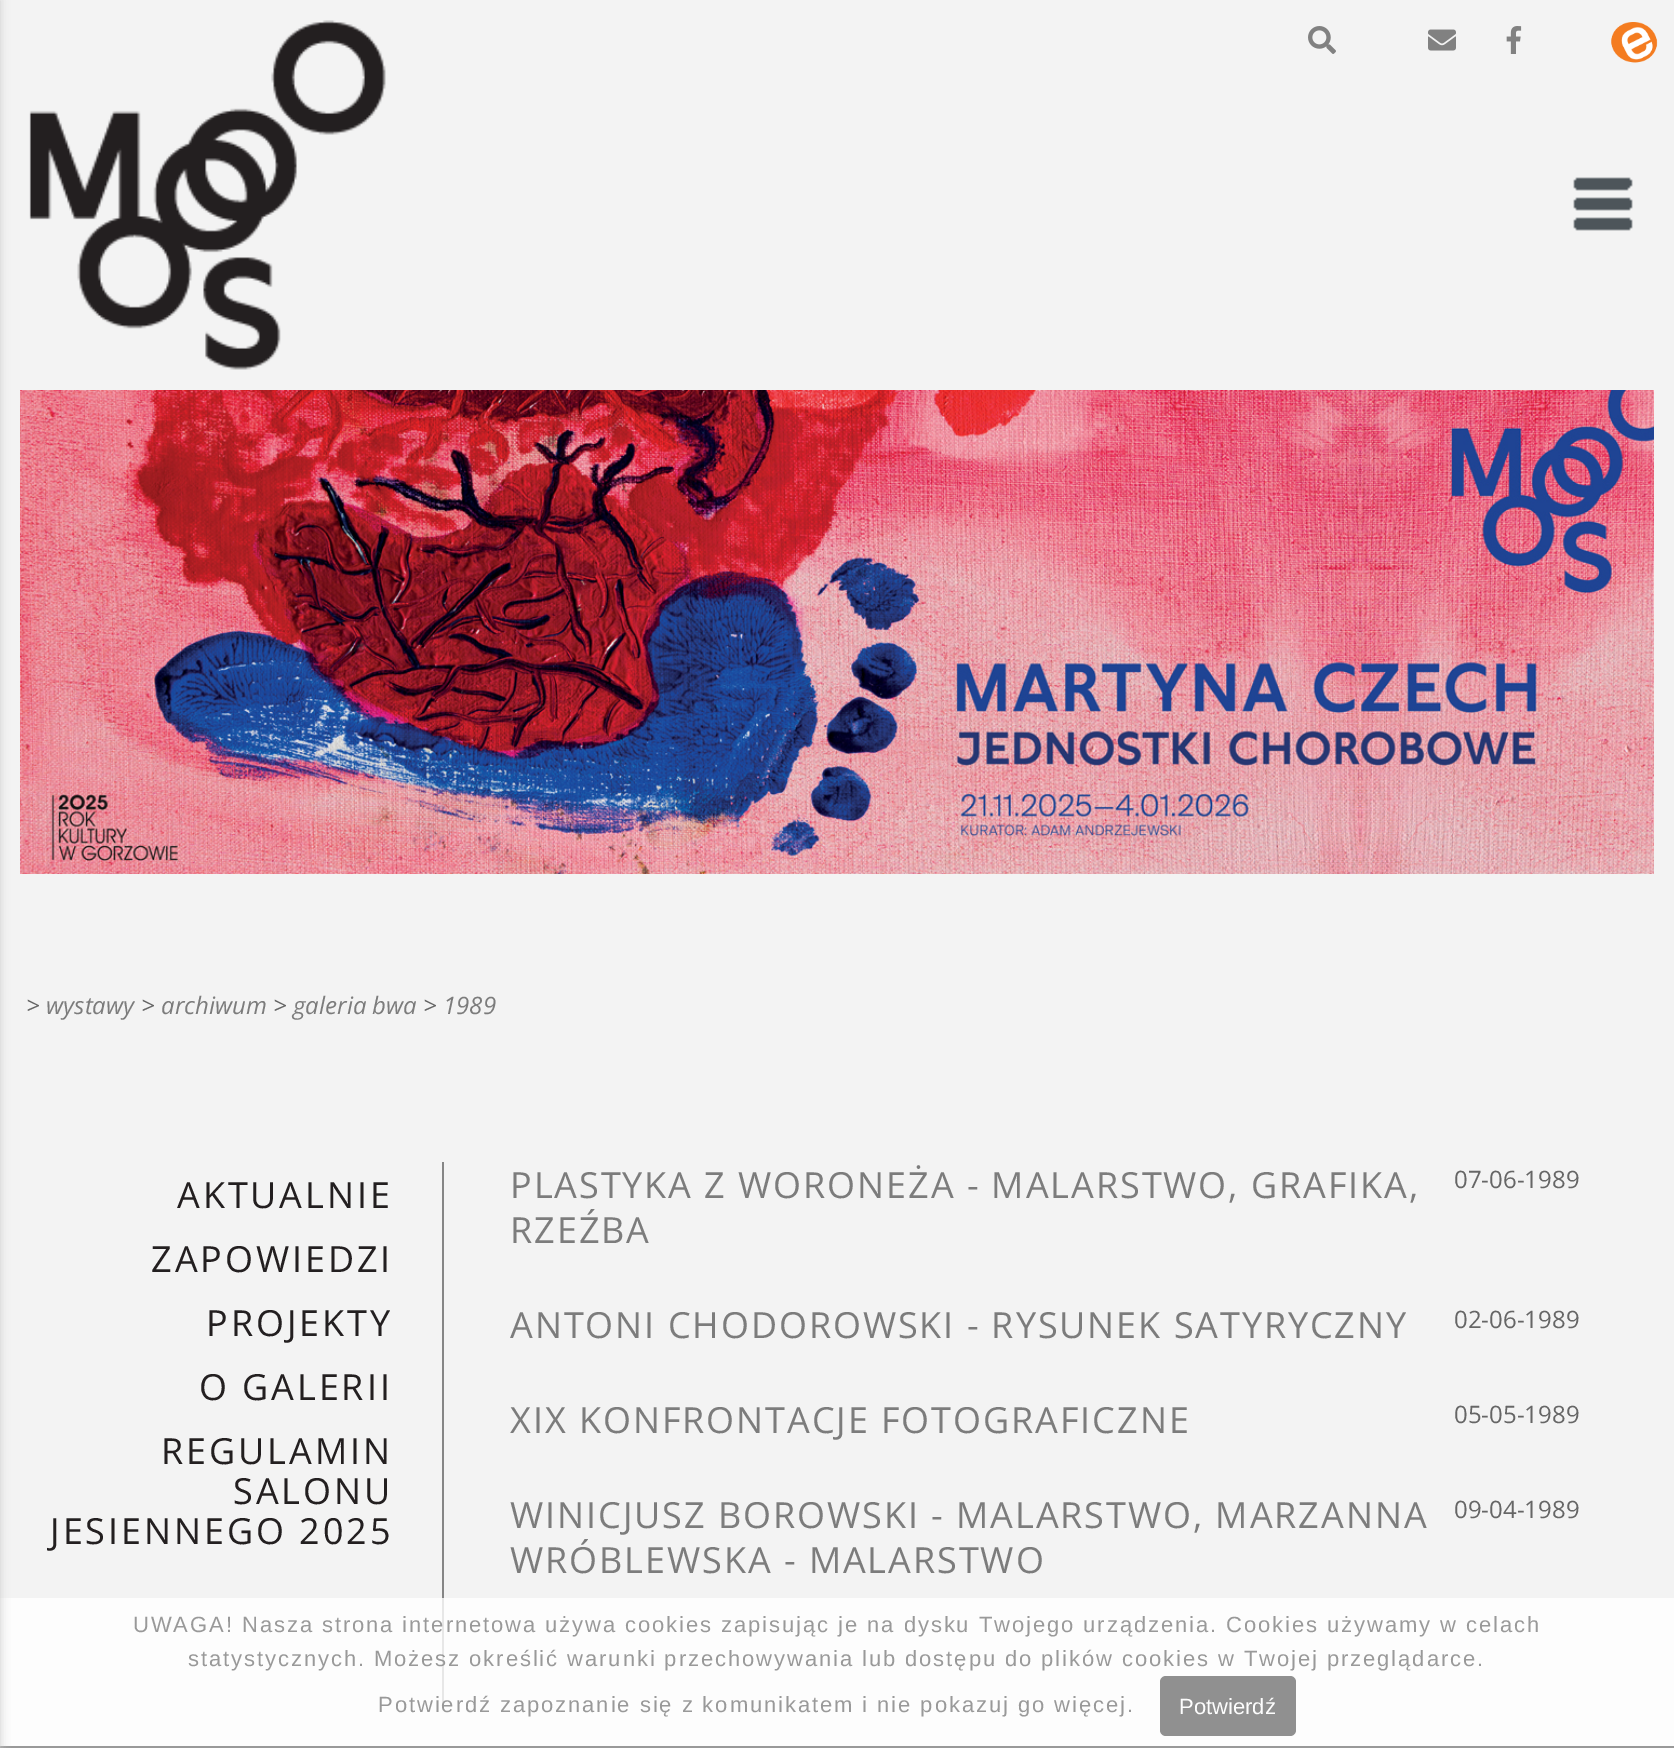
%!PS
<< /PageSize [1674 1748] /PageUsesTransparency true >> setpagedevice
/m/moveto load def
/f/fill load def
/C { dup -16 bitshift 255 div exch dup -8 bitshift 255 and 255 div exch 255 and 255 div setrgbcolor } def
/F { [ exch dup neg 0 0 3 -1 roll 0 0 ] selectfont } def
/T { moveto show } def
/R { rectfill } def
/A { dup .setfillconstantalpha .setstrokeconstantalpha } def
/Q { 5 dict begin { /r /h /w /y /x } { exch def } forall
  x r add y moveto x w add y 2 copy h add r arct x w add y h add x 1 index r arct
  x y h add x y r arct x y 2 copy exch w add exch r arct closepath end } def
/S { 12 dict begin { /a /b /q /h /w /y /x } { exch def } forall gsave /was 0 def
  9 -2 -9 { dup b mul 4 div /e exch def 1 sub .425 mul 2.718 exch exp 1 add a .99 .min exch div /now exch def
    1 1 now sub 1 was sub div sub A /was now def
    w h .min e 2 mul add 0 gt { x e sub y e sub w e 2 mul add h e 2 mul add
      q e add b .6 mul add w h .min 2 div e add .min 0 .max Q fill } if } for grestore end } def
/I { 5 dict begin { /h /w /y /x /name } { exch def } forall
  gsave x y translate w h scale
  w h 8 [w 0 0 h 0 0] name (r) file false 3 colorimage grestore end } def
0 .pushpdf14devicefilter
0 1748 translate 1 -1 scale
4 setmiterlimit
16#F3F3F3 C
0 0 1674 1748 R
16#858585 C
442 1162 2 544 R
0.8 A
16#FFFFFF C
0 1598 1674 150 R
16#808080 C
0 1746 1674 2 R
1 A
16#CCCCCC C
-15 0 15 1748 0 5 1 S
(1.rgb) 29 20 357 350 I
(2.rgb) 1308 26 28 28 I
(3.rgb) 1428 29 28 22 I
(4.rgb) 1506 26 16 28 I
(5.rgb) 1611 22 47 41 I
(6.rgb) 1573 177 60 54 I
(7.rgb) 20 390 1634 484 I
/OpenSans-Italic 24 F
16#666666 C
(>) 26 1014 T
16#7C7C7C C
(wystawy) 46 1014 T
16#666666 C
(>) 141 1014 T
16#7C7C7C C
(archiwum) 161 1014 T
16#666666 C
(>) 273 1014 T
16#7C7C7C C
(galeria bwa) 293 1014 T
16#666666 C
(>) 423 1014 T
16#7C7C7C C
(1989) 443 1014 T
/OpenSans-Regular 36 F
16#231F20 C
177 1208 m 2.9 0 (AKTUALNIE) ashow
151 1272 m 2.9 0 (ZAPOWIEDZI) ashow
206 1336 m 2.9 0 (PROJEKTY) ashow
199 1400 m 2.9 0 (O GALERII) ashow
161 1464 m 2.9 0 (REGULAMIN) ashow
233 1504 m 2.9 0 (SALONU) ashow
50 1544 m 2.9 0 (JESIENNEGO 2025) ashow
16#7C7C7C C
510 1198 m 1.92 0 (PLASTYKA Z WORONEŻA - MALARSTWO, GRAFIKA,) ashow
510 1243 m 1.92 0 (RZEŹBA) ashow
/OpenSans-Regular 24 F
16#666666 C
(07-06-1989) 1454 1188 T
/OpenSans-Regular 36 F
16#7C7C7C C
510 1338 m 1.92 0 (ANTONI CHODOROWSKI - RYSUNEK SATYRYCZNY) ashow
/OpenSans-Regular 24 F
16#666666 C
(02-06-1989) 1454 1328 T
/OpenSans-Regular 36 F
16#7C7C7C C
510 1433 m 1.92 0 (XIX KONFRONTACJE FOTOGRAFICZNE) ashow
/OpenSans-Regular 24 F
16#666666 C
(05-05-1989) 1454 1423 T
/OpenSans-Regular 36 F
16#7C7C7C C
510 1528 m 1.92 0 (WINICJUSZ BOROWSKI - MALARSTWO, MARZANNA) ashow
510 1573 m 1.92 0 (WRÓBLEWSKA - MALARSTWO) ashow
/OpenSans-Regular 24 F
16#666666 C
(09-04-1989) 1454 1518 T
/LiberationSans-Regular 22 F
16#999999 C
133 1632 m 1.92 0 (UWAGA! Nasza strona internetowa używa cookies zapisując je na dysku Twojego urządzenia. Cookies używamy w celach) ashow
188 1666 m 1.92 0 (statystycznych. Możesz określić warunki przechowywania lub dostępu do plików cookies w Twojej przeglądarce.) ashow
378 1712 m 1.92 0 (Potwierdź zapoznanie się z komunikatem i nie pokazuj go więcej.) ashow
16#909090 C
1160 1676 136 60 6 Q f
16#FDFDFD C
(Potwierdź) 1179 1714 T
.poppdf14devicefilter showpage
